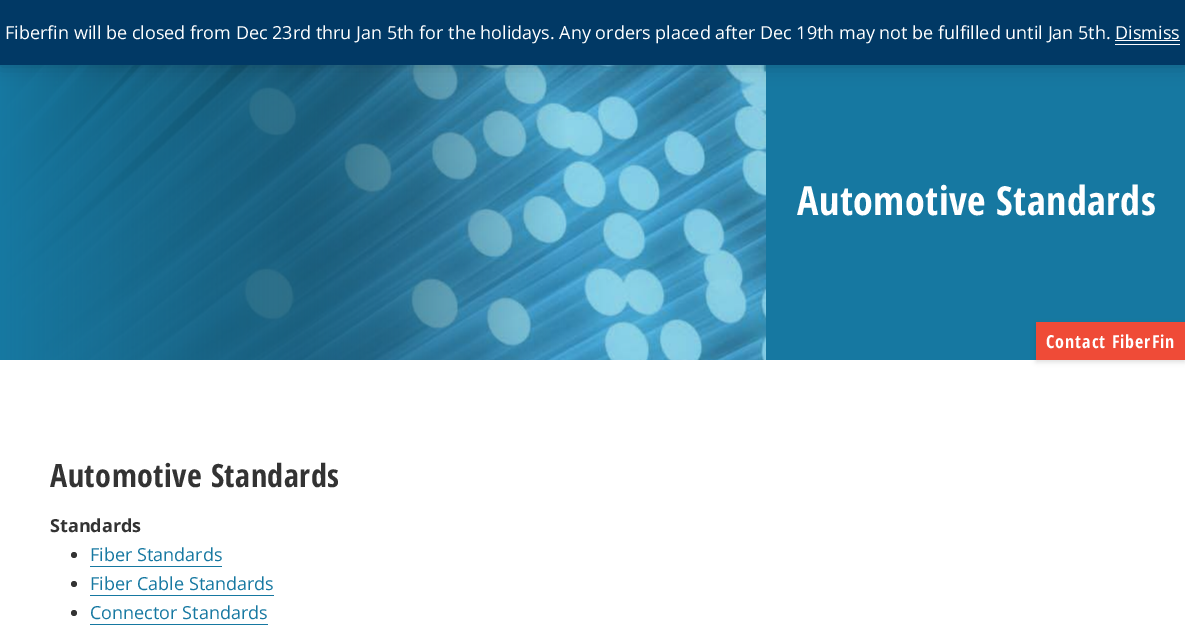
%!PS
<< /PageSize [1185 628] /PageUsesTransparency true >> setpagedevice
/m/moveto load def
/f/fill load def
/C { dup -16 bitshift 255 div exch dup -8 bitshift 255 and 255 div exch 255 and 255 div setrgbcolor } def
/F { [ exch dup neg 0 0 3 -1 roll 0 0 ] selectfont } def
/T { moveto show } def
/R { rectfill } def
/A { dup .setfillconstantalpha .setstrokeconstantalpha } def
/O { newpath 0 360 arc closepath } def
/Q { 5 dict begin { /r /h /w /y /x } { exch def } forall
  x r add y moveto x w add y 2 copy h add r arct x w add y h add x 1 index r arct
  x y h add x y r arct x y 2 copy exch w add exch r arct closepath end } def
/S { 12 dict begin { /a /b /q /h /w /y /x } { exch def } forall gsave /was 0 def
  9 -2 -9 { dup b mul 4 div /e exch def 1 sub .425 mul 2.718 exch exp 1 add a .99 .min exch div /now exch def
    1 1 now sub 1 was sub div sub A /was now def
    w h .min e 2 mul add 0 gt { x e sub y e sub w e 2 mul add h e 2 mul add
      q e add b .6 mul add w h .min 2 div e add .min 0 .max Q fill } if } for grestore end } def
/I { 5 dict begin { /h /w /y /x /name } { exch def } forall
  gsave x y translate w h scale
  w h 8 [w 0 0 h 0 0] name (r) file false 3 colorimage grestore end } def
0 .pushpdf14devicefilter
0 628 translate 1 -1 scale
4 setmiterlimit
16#FFFFFF C
0 0 1185 628 R
16#1678A1 C
766 65 419 295 R
(1.rgb) 0 65 766 295 I
16#000000 C
0 1 1185 65 0 9 .2 S
16#013965 C
0 0 1185 65 R
/OpenSans-Regular 18 F
16#FFFFFF C
(Fiberfin will be closed from Dec 23rd thru Jan 5th for the holidays. Any orders placed after Dec 19th may not be fulfilled until Jan 5th. Dismiss) 5 39 T
16#FCFBFE C
1115 40 65 1 R
1115 44 65 1 R
/OpenSansCondensed-Bold 40 F
16#FFFFFF C
797 215 m .5 0 (Automotive Standards) ashow
16#000000 C
1036 324 149 38 0 2.5 .12 S
16#EF4B37 C
1036 322 149 38 R
/OpenSansCondensed-Bold 18 F
16#FFFFFF C
1046 348 m 1 0 (Contact FiberFin) ashow
/OpenSansCondensed-Bold 32 F
16#333333 C
50 487 m .5 0 (Automotive Standards) ashow
/OpenSans-Bold 18 F
(Standards) 50 532 T
74 555 3 O f
/OpenSans-Regular 18 F
16#1678A1 C
(Fiber Standards) 90 561 T
90 566 132 1 R
16#333333 C
74 584 3 O f
16#1678A1 C
(Fiber Cable Standards) 90 590 T
90 595 184 1 R
16#333333 C
74 613 3 O f
16#1678A1 C
(Connector Standards) 90 619 T
90 624 178 1 R
.poppdf14devicefilter showpage
